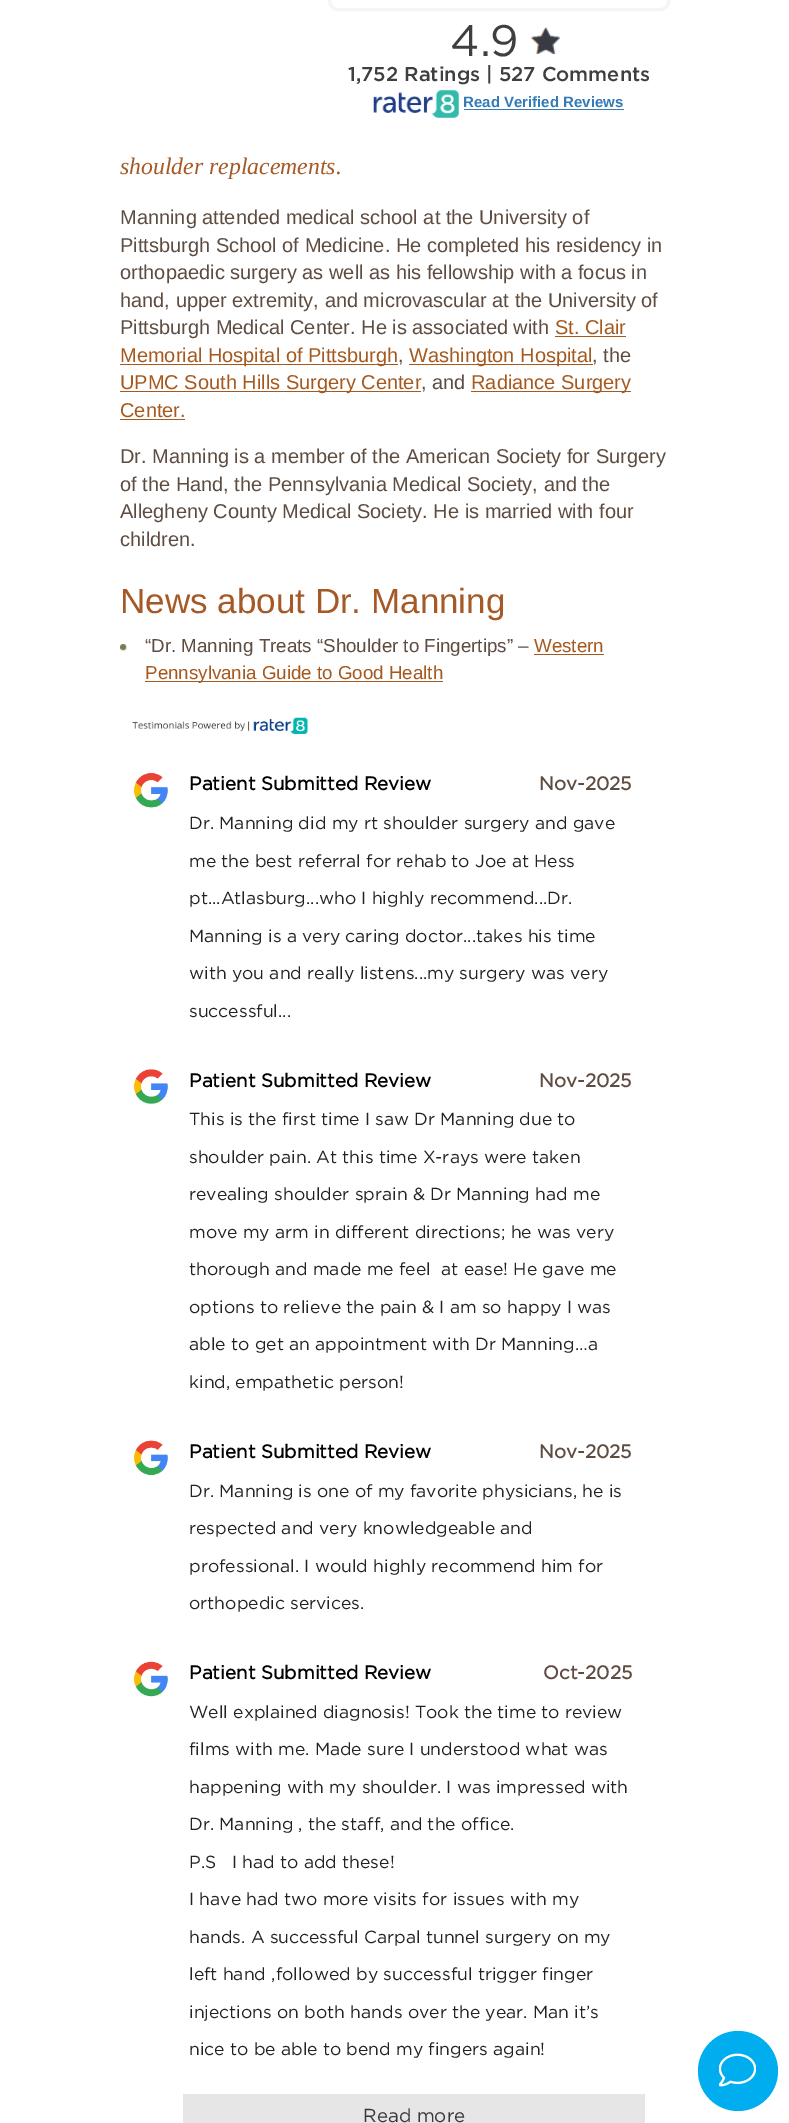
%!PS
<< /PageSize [789 2123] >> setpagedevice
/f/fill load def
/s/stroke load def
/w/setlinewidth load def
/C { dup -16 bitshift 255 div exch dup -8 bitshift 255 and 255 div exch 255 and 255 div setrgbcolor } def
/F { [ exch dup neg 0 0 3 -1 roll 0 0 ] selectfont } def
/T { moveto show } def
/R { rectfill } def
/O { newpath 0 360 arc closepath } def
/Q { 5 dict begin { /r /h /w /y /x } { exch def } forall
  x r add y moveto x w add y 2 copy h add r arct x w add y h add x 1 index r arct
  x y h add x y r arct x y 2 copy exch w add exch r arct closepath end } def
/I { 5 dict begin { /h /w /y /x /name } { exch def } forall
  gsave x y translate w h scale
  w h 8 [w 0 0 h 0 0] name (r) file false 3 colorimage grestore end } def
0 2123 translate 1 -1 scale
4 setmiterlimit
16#FFFFFF C
0 0 789 2123 R
16#F3F6F6 C
3 w
329.5 -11.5 339 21 8.5 Q s
/GOTHAM-Regular 44 F
16#3F3F3F C
(4.9) 450 56 T
(1.rgb) 531 27 29 27 I
/GOTHAM-Medium 20 F
(1,752 Ratings | 527 Comments) 348 81 T
(2.rgb) 373 90 86 28 I
/LiberationSans-Bold 15 F
16#337AB7 C
(Read Verified Reviews) 463 107 T
464 109 160 1 R
/LiberationSerif-Italic 23.75 F
16#A55926 C
(shoulder replacements.) 120 174 T
/LiberationSans-Regular 20 F
16#5E4C40 C
(Manning attended medical school at the University of) 120 224 T
(Pittsburgh School of Medicine. He completed his residency in) 120 252 T
(orthopaedic surgery as well as his fellowship with a focus in) 120 279 T
(hand, upper extremity, and microvascular at the University of) 120 307 T
(Pittsburgh Medical Center. He is associated with) 120 334 T
16#A5591F C
(St. Clair) 555 334 T
555 336 71 1 R
120 364 278 1 R
(Memorial Hospital of Pittsburgh) 120 362 T
16#5E4C40 C
(,) 398 362 T
16#A5591F C
409 364 184 1 R
(Washington Hospital) 409 362 T
16#5E4C40 C
(, the) 592 362 T
16#A5591F C
120 391 301 1 R
(UPMC South Hills Surgery Center) 120 389 T
16#5E4C40 C
(, and) 421 389 T
16#A5591F C
471 391 160 1 R
(Radiance Surgery) 471 389 T
(Center.) 120 417 T
120 419 65 1 R
16#5E4C40 C
(Dr. Manning is a member of the American Society for Surgery) 120 463 T
(of the Hand, the Pennsylvania Medical Society, and the) 120 491 T
(Allegheny County Medical Society. He is married with four) 120 518 T
(children.) 120 546 T
/LiberationSans-Regular 35 F
16#A55926 C
(News about Dr. Manning) 120 613 T
(3.rgb) 120 644 7 7 I
/LiberationSans-Regular 18.75 F
16#5E4C40 C
(“Dr. Manning Treats “Shoulder to Fingertips” –) 145 652 T
16#A5591F C
(Western) 534 652 T
534 654 70 1 R
145 681 298 1 R
(Pennsylvania Guide to Good Health) 145 679 T
(4.rgb) 132 717 176 17 I
(5.rgb) 133 772 35 36 I
/GOTHAM-Bold 18.75 F
16#000000 C
(Patient Submitted Review) 189 790 T
16#5E4C40 C
(Nov-2025) 539 790 T
/GOTHAM-Regular 17.5 F
16#222222 C
(Dr. Manning did my rt shoulder surgery and gave) 189 829 T
(me the best referral for rehab to Joe at Hess) 189 867 T
(pt...Atlasburg...who I highly recommend...Dr.) 189 904 T
(Manning is a very caring doctor...takes his time) 189 942 T
(with you and really listens...my surgery was very) 189 979 T
(successful...) 189 1017 T
(6.rgb) 133 1069 35 35 I
/GOTHAM-Bold 18.75 F
16#000000 C
(Patient Submitted Review) 189 1087 T
16#5E4C40 C
(Nov-2025) 539 1087 T
/GOTHAM-Regular 17.5 F
16#222222 C
(This is the first time I saw Dr Manning due to) 189 1125 T
(shoulder pain. At this time X-rays were taken) 189 1163 T
(revealing shoulder sprain & Dr Manning had me) 189 1200 T
(move my arm in different directions; he was very) 189 1238 T
(thorough and made me feel  at ease! He gave me) 189 1275 T
(options to relieve the pain & I am so happy I was) 189 1313 T
(able to get an appointment with Dr Manning…a) 189 1350 T
(kind, empathetic person!) 189 1388 T
(7.rgb) 133 1440 35 36 I
/GOTHAM-Bold 18.75 F
16#000000 C
(Patient Submitted Review) 189 1458 T
16#5E4C40 C
(Nov-2025) 539 1458 T
/GOTHAM-Regular 17.5 F
16#222222 C
(Dr. Manning is one of my favorite physicians, he is) 189 1497 T
(respected and very knowledgeable and) 189 1534 T
(professional. I would highly recommend him for) 189 1572 T
(orthopedic services.) 189 1609 T
(8.rgb) 133 1661 35 36 I
/GOTHAM-Bold 18.75 F
16#000000 C
(Patient Submitted Review) 189 1679 T
16#5E4C40 C
(Oct-2025) 543 1679 T
/GOTHAM-Regular 17.5 F
16#222222 C
(Well explained diagnosis! Took the time to review) 189 1718 T
(films with me. Made sure I understood what was) 189 1755 T
(happening with my shoulder. I was impressed with) 189 1793 T
(Dr. Manning , the staff, and the office.) 189 1830 T
(P.S   I had to add these!) 189 1868 T
(I have had two more visits for issues with my) 189 1905 T
(hands. A successful Carpal tunnel surgery on my) 189 1943 T
(left hand ,followed by successful trigger finger) 189 1980 T
(injections on both hands over the year. Man it’s) 189 2018 T
(nice to be able to bend my fingers again!) 189 2055 T
16#E6E6E6 C
183 2094 462 29 R
/GOTHAM-Regular 18.75 F
16#383838 C
(Read more) 363 2122 T
16#00AEEF C
738 2071 40 O f
(9.rgb) 719 2053 37 34 I
showpage
